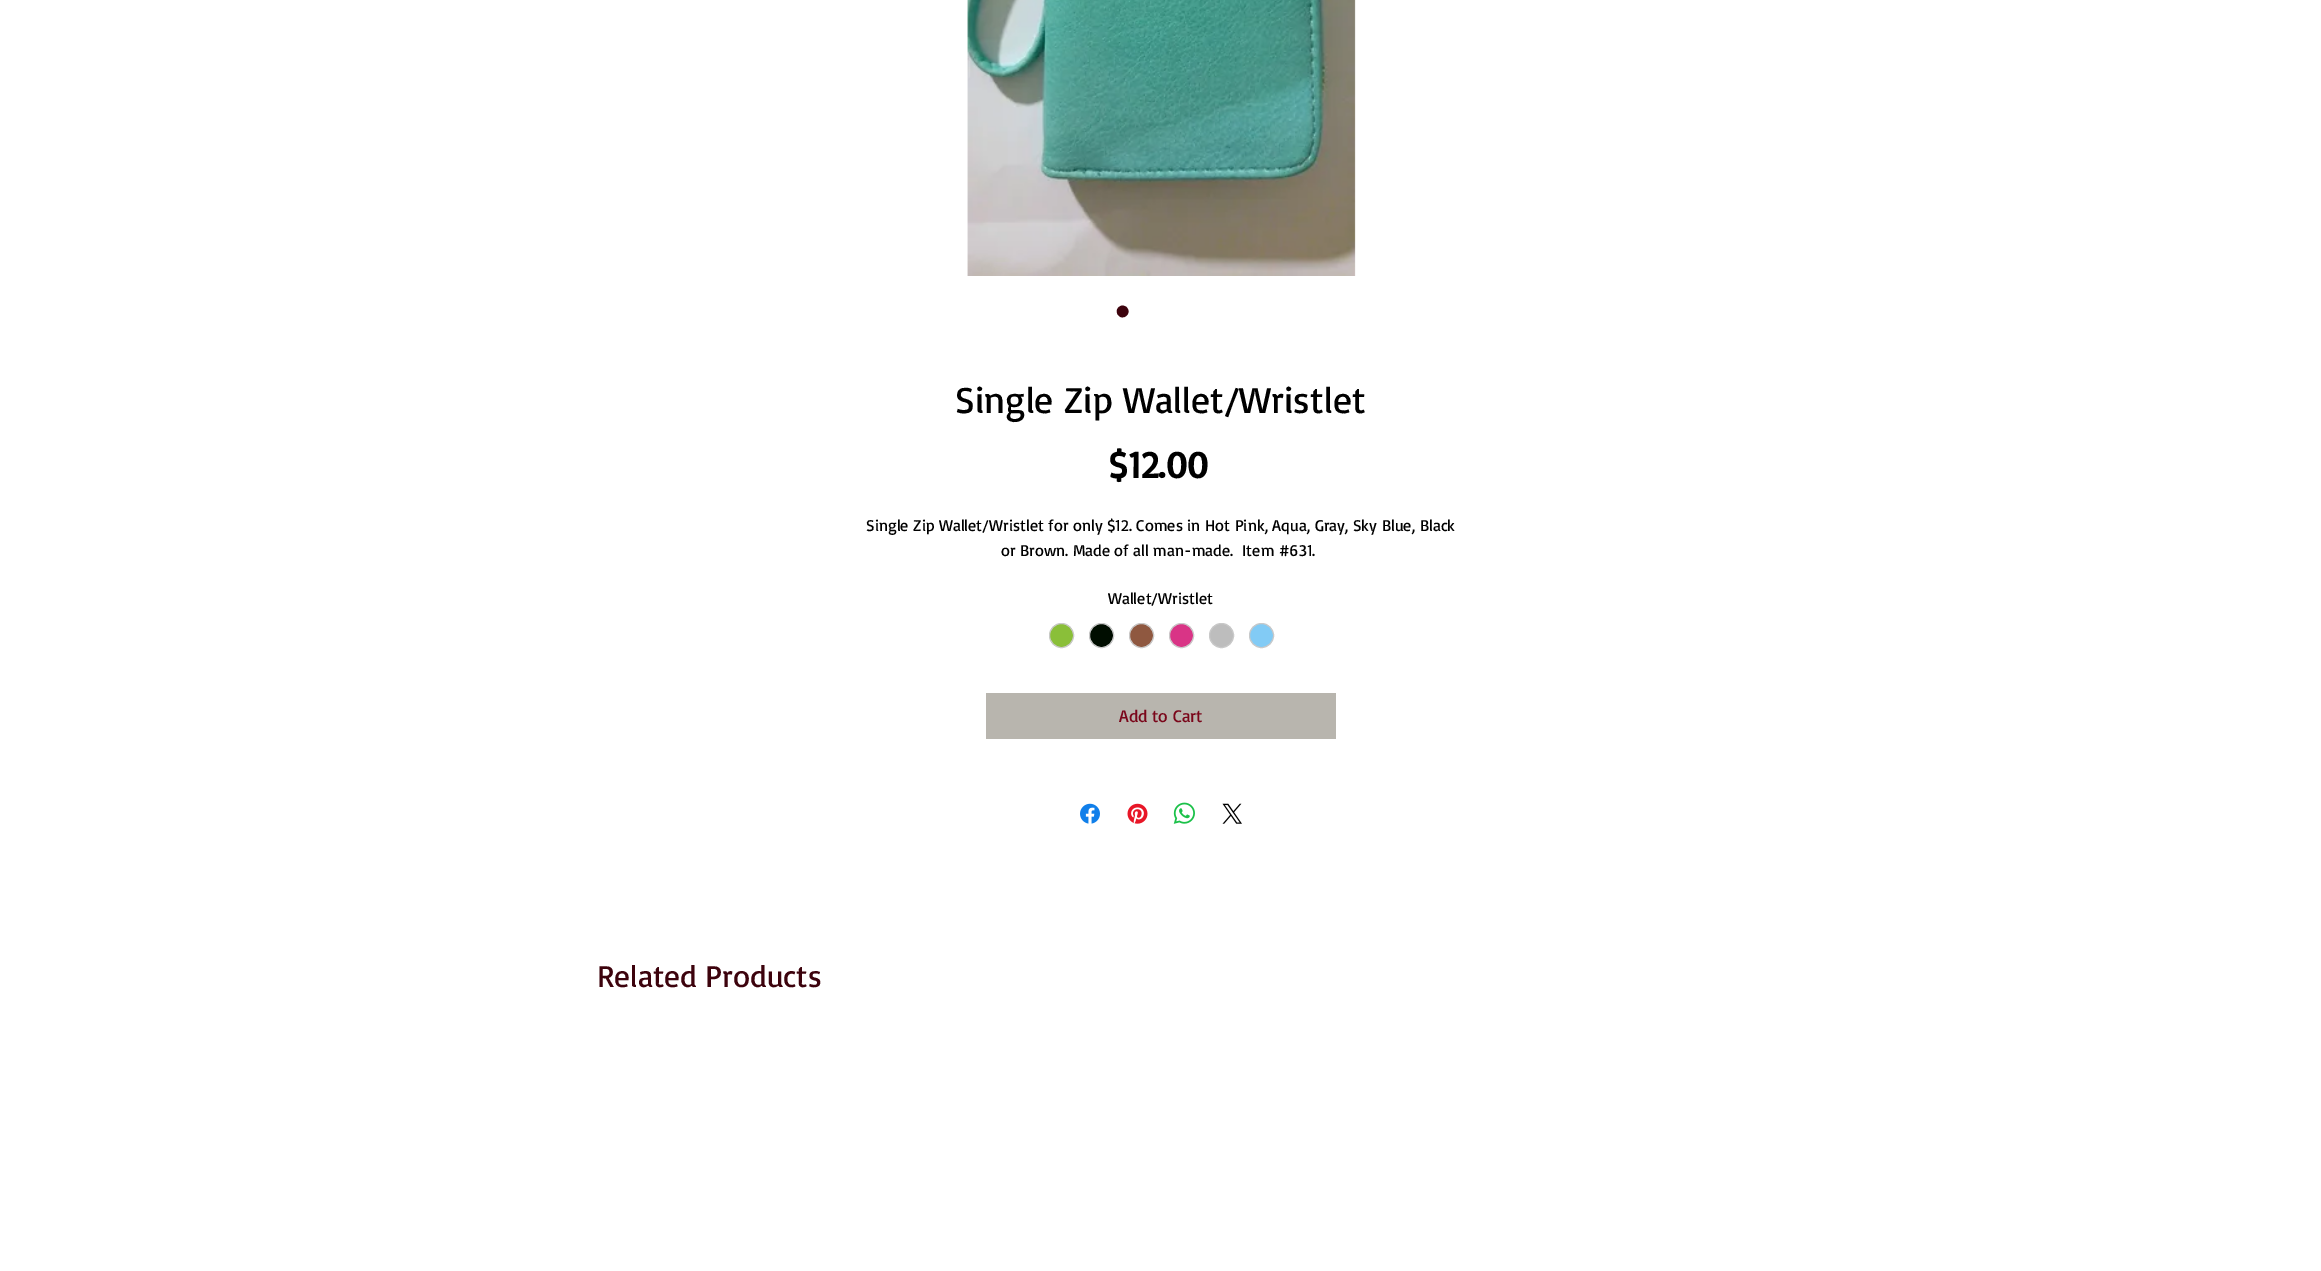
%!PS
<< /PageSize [2321 1271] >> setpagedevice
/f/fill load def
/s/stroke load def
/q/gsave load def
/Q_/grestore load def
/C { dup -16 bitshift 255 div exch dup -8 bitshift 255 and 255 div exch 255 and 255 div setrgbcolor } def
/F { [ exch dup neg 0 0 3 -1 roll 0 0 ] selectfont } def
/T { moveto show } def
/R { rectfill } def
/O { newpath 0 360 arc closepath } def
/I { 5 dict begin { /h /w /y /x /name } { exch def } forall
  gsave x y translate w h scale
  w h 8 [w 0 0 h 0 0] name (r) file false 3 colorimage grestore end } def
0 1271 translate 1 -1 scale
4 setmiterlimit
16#FFFFFF C
0 0 2321 1271 R
(1.rgb) 967 0 389 276 I
/LiberationSans-Regular 44 F
16#3D030D C
(•) 1115 326 T
/Basic-Regular 37.5 F
16#000000 C
(Single Zip Wallet/Wristlet) 955 413 T
/Basic-Bold 37.5 F
($12.00) 1108 478 T
/Basic-Regular 16.25 F
(Single Zip Wallet/Wristlet for only $12. Comes in Hot Pink, Aqua, Gray, Sky Blue, Black) 866 531 T
(or Brown. Made of all man-made.  Item #631.) 1001 556 T
(Wallet/Wristlet) 1108 604 T
16#8ABF39 C
1061.5 635.5 12 O q f Q_
16#C9C9C9 C
s
16#000D00 C
1101.5 635.5 12 O q f Q_
16#C9C9C9 C
s
16#8F5840 C
1141.5 635.5 12 O q f Q_
16#C9C9C9 C
s
16#D93486 C
1181.5 635.5 12 O q f Q_
16#C9C9C9 C
s
16#BDBDBD C
1221.5 635.5 12 O q f Q_
16#C9C9C9 C
s
16#82CBF5 C
1261.5 635.5 12 O q f Q_
16#C9C9C9 C
s
16#B8B5AE C
986 693 350 46 R
/Basic-Regular 17.5 F
16#7A061A C
(Add to Cart) 1119 722 T
(2.rgb) 1080 803 20 21 I
(3.rgb) 1127 803 21 21 I
(4.rgb) 1173 802 22 22 I
(5.rgb) 1222 803 20 21 I
/Basic-Regular 31.25 F
16#3D030D C
(Related Products) 597 987 T
showpage
